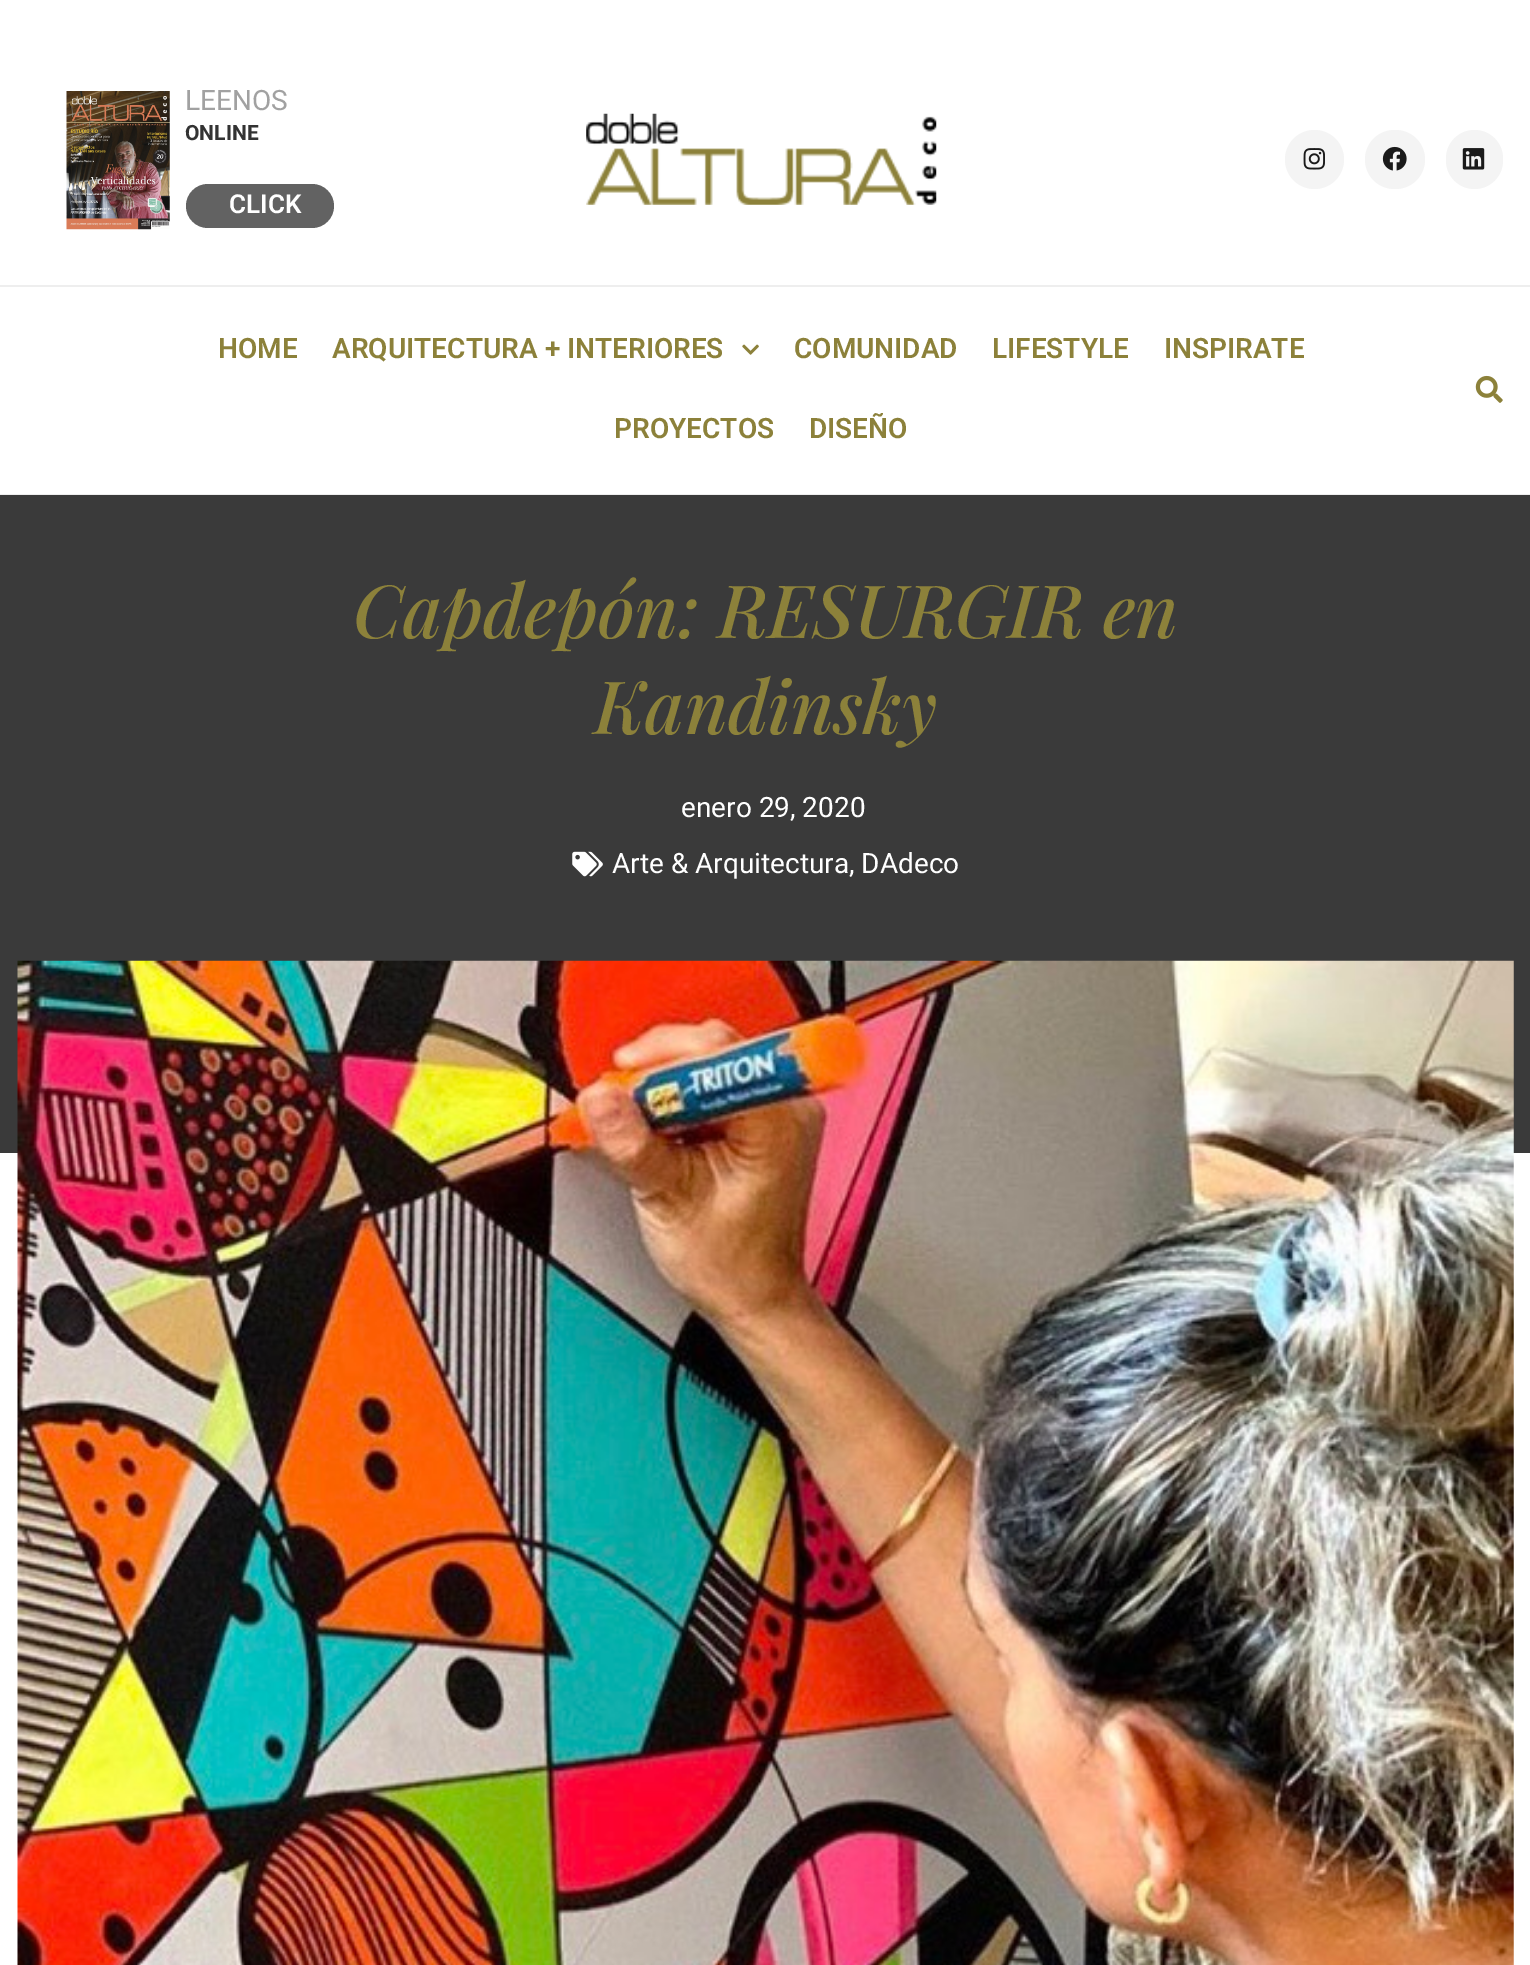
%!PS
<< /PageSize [1530 1965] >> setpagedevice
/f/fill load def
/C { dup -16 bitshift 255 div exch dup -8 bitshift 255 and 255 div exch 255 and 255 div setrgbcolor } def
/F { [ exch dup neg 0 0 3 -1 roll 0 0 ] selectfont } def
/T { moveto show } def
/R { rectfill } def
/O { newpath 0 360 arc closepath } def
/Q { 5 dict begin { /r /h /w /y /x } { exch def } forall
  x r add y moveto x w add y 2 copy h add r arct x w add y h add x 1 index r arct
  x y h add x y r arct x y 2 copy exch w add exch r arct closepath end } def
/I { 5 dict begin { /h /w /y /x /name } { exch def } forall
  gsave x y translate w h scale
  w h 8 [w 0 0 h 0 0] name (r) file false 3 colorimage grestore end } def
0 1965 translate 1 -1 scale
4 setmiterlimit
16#FFFFFF C
0 0 1530 1965 R
(1.rgb) 66 91 104 139 I
/Roboto-Regular 28 F
16#A1A1A1 C
(LEENOS) 185 110 T
/Roboto-Bold 21 F
16#333333 C
(ONLINE) 185 140 T
16#626262 C
186 184 148 44 22 Q f
/Roboto-SemiBold 26 F
16#FFFFFF C
(CLICK) 229 213 T
(2.rgb) 586 113 351 92 I
16#F4F4F4 C
1314.5 159.5 29.5 O f
(3.rgb) 1303 148 22 22 I
1365 130 60 59 29.5 Q f
(4.rgb) 1382 146 25 25 I
1446 130 57 59 28.5 Q f
(5.rgb) 1462 148 23 22 I
16#EEEEEE C
0 285 1530 2 R
0 494 1530 1 R
/Roboto-SemiBold 28 F
16#8C813A C
(HOME) 218 358 T
(ARQUITECTURA + INTERIORES) 332 358 T
(6.rgb) 742 344 17 11 I
(COMUNIDAD) 794 358 T
(LIFESTYLE) 992 358 T
(INSPIRATE) 1164 358 T
(PROYECTOS) 614 438 T
(DISEÑO) 809 438 T
(7.rgb) 1475 375 28 28 I
16#3A3A3A C
0 495 1530 658 R
/PlayfairDisplay-MediumItalic 73.5 F
16#8C813A C
(Capdepón: RESURGIR en) 353 638 T
(Kandinsky) 594 734 T
/Roboto-Regular 28 F
16#FFFFFF C
(enero 29, 2020) 681 817 T
(8.rgb) 572 851 31 26 I
(Arte & Arquitectura, DAdeco) 612 873 T
(9.rgb) 17 960 1497 1005 I
showpage
